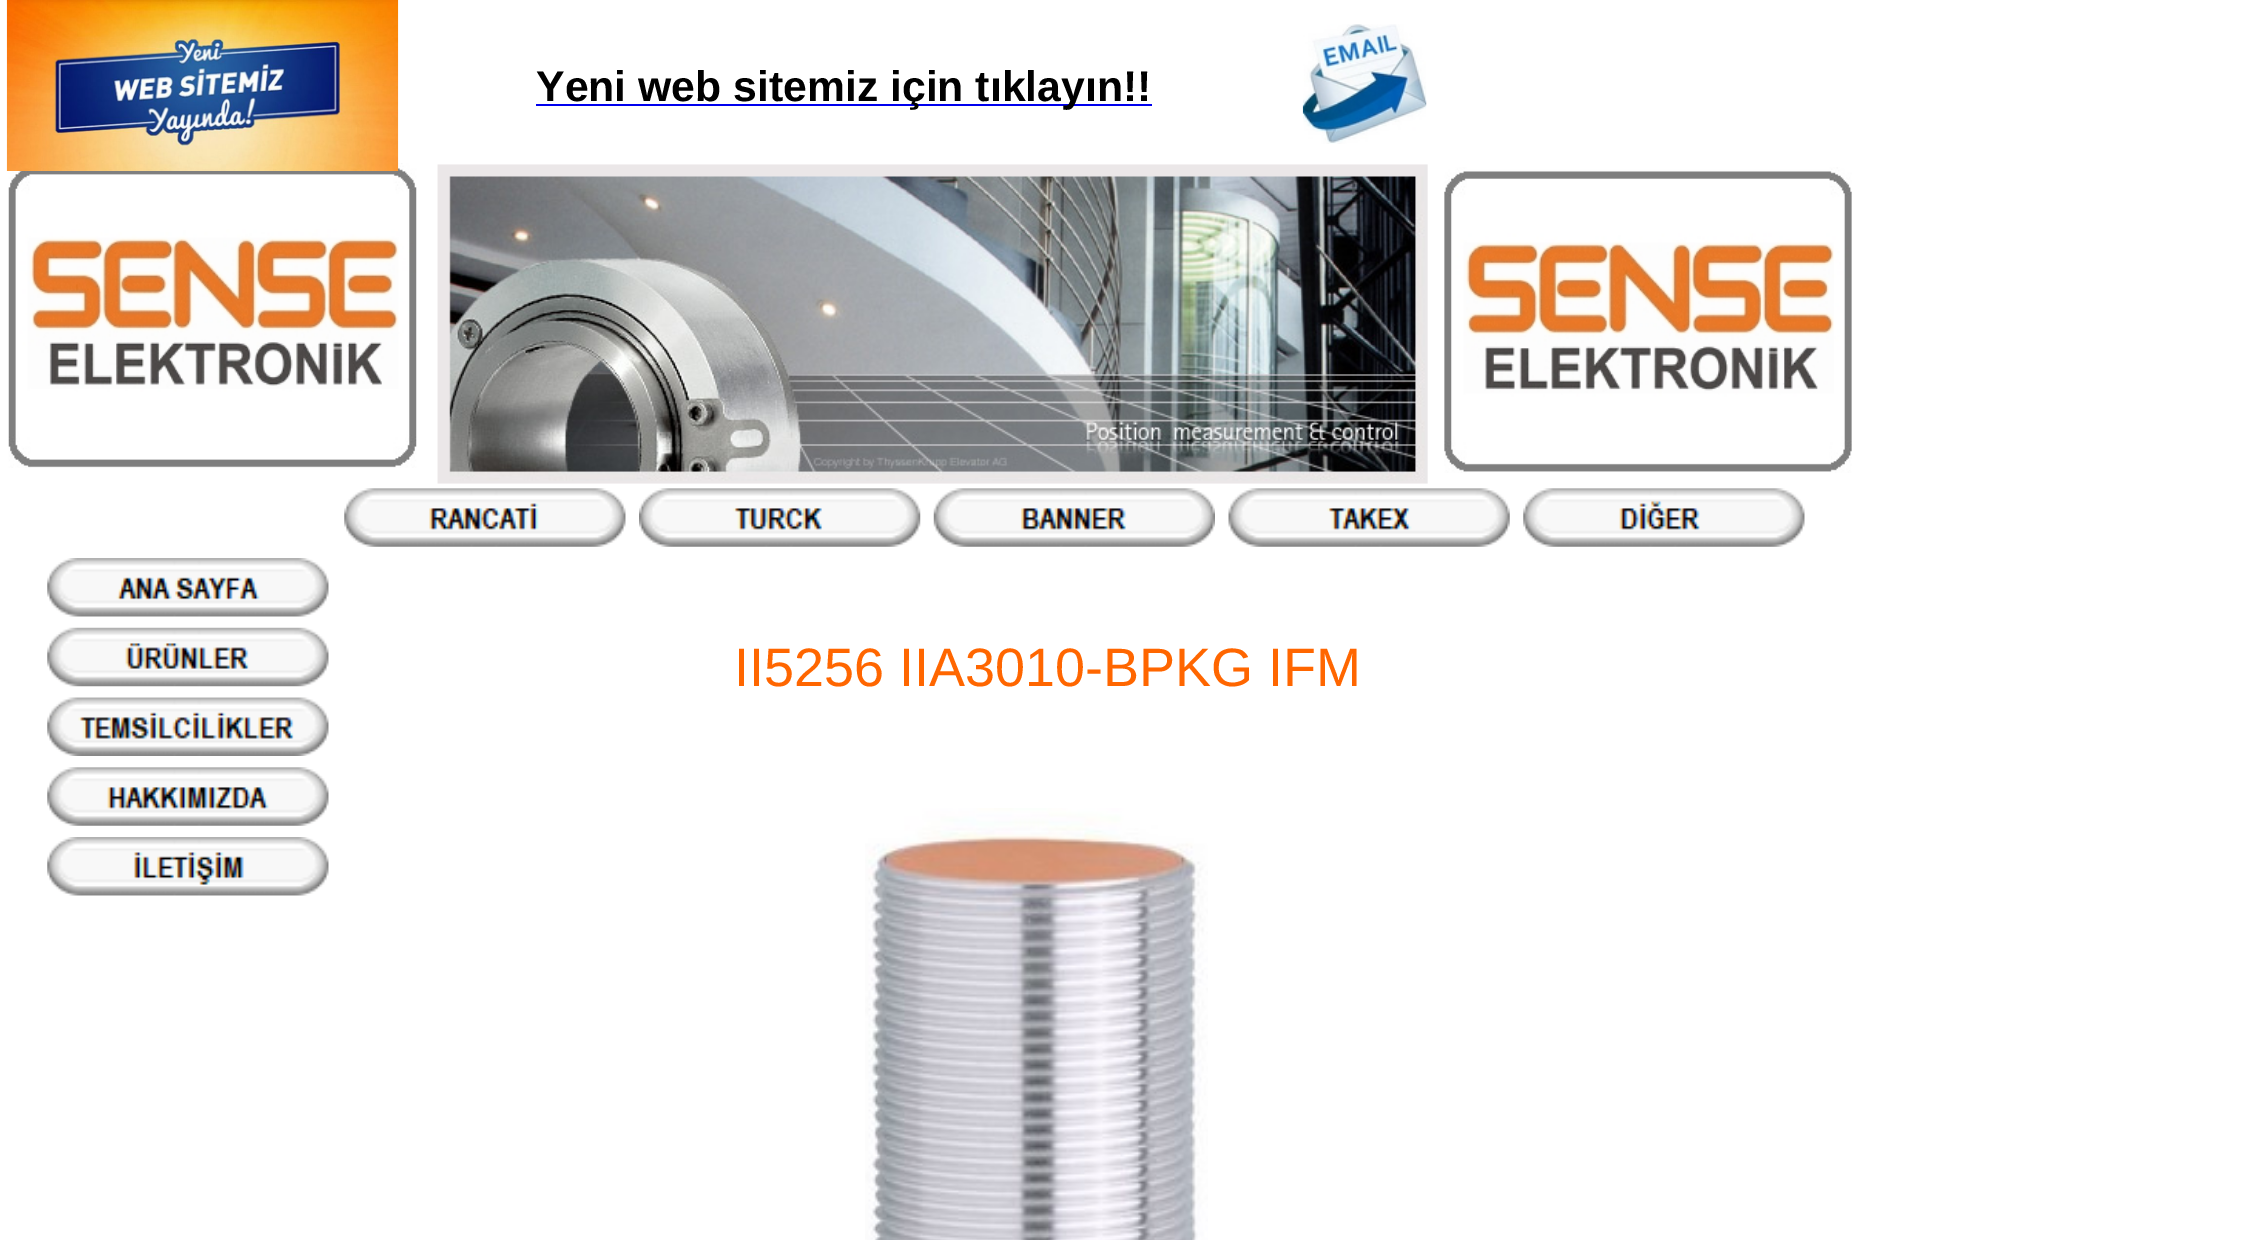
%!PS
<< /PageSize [2259 1240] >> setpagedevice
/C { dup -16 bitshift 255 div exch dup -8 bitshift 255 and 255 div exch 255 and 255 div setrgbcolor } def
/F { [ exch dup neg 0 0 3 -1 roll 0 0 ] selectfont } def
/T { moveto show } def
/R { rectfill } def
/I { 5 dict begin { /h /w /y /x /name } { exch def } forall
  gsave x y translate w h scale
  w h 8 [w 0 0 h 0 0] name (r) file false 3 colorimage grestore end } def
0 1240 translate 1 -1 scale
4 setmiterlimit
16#FFFFFF C
0 0 2259 1240 R
(3.rgb) 8 163 409 305 I
(1.rgb) 6 0 393 171 I
16#0000EE C
536 104 616 2 R
/LiberationSans-Bold 42.75 F
16#000000 C
(Yeni web sitemiz için tıklayın!!) 536 101 T
(2.rgb) 1302 24 125 120 I
(4.rgb) 437 164 991 320 I
(5.rgb) 1444 167 408 306 I
(6.rgb) 344 488 282 59 I
(7.rgb) 639 488 282 59 I
(8.rgb) 933 488 282 59 I
(9.rgb) 1228 488 282 59 I
(10.rgb) 1523 488 282 59 I
(11.rgb) 47 558 282 59 I
(12.rgb) 47 627 282 60 I
/LiberationSans-Regular 54 F
16#FF6600 C
(II5256 IIA3010-BPKG IFM) 734 686 T
(13.rgb) 47 697 282 59 I
(14.rgb) 47 767 282 59 I
(15.rgb) 47 837 282 59 I
(16.rgb) 865 808 343 432 I
showpage
